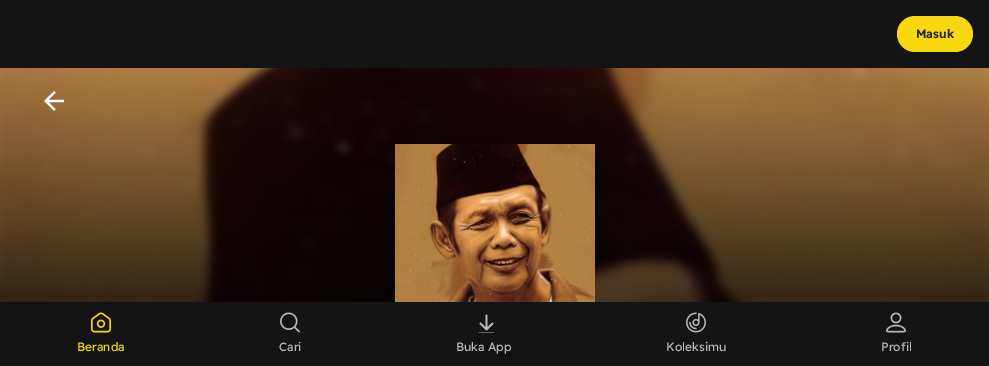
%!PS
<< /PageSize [989 366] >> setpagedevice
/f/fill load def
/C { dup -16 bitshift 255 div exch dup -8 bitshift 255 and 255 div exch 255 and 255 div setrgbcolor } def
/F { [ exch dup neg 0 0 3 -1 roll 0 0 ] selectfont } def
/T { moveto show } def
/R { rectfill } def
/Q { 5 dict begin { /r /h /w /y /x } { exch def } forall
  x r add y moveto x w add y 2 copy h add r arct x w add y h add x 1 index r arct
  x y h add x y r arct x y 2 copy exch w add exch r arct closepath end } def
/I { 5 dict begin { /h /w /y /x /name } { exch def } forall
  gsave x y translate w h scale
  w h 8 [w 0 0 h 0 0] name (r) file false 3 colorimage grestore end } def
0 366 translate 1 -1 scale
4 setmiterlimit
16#141414 C
0 0 989 366 R
16#FAD810 C
897 16 76 36 18 Q f
/ReadexPro-SemiBold 12 F
16#212529 C
(Masuk) 916 38 T
(1.rgb) 0 68 989 234 I
(2.rgb) 0 68 989 234 I
(3.rgb) 44 91 20 20 I
(4.rgb) 395 144 200 158 I
(5.rgb) 91 312 20 21 I
/ReadexPro-Regular 12 F
16#FAD810 C
(Beranda) 77 351 T
(6.rgb) 280 312 20 21 I
16#B9B9B9 C
(Cari) 279 351 T
(7.rgb) 478 314 16 19 I
(Buka App) 456 351 T
(8.rgb) 686 312 20 21 I
(Koleksimu) 666 351 T
(9.rgb) 886 312 20 21 I
(Profil) 881 351 T
showpage
